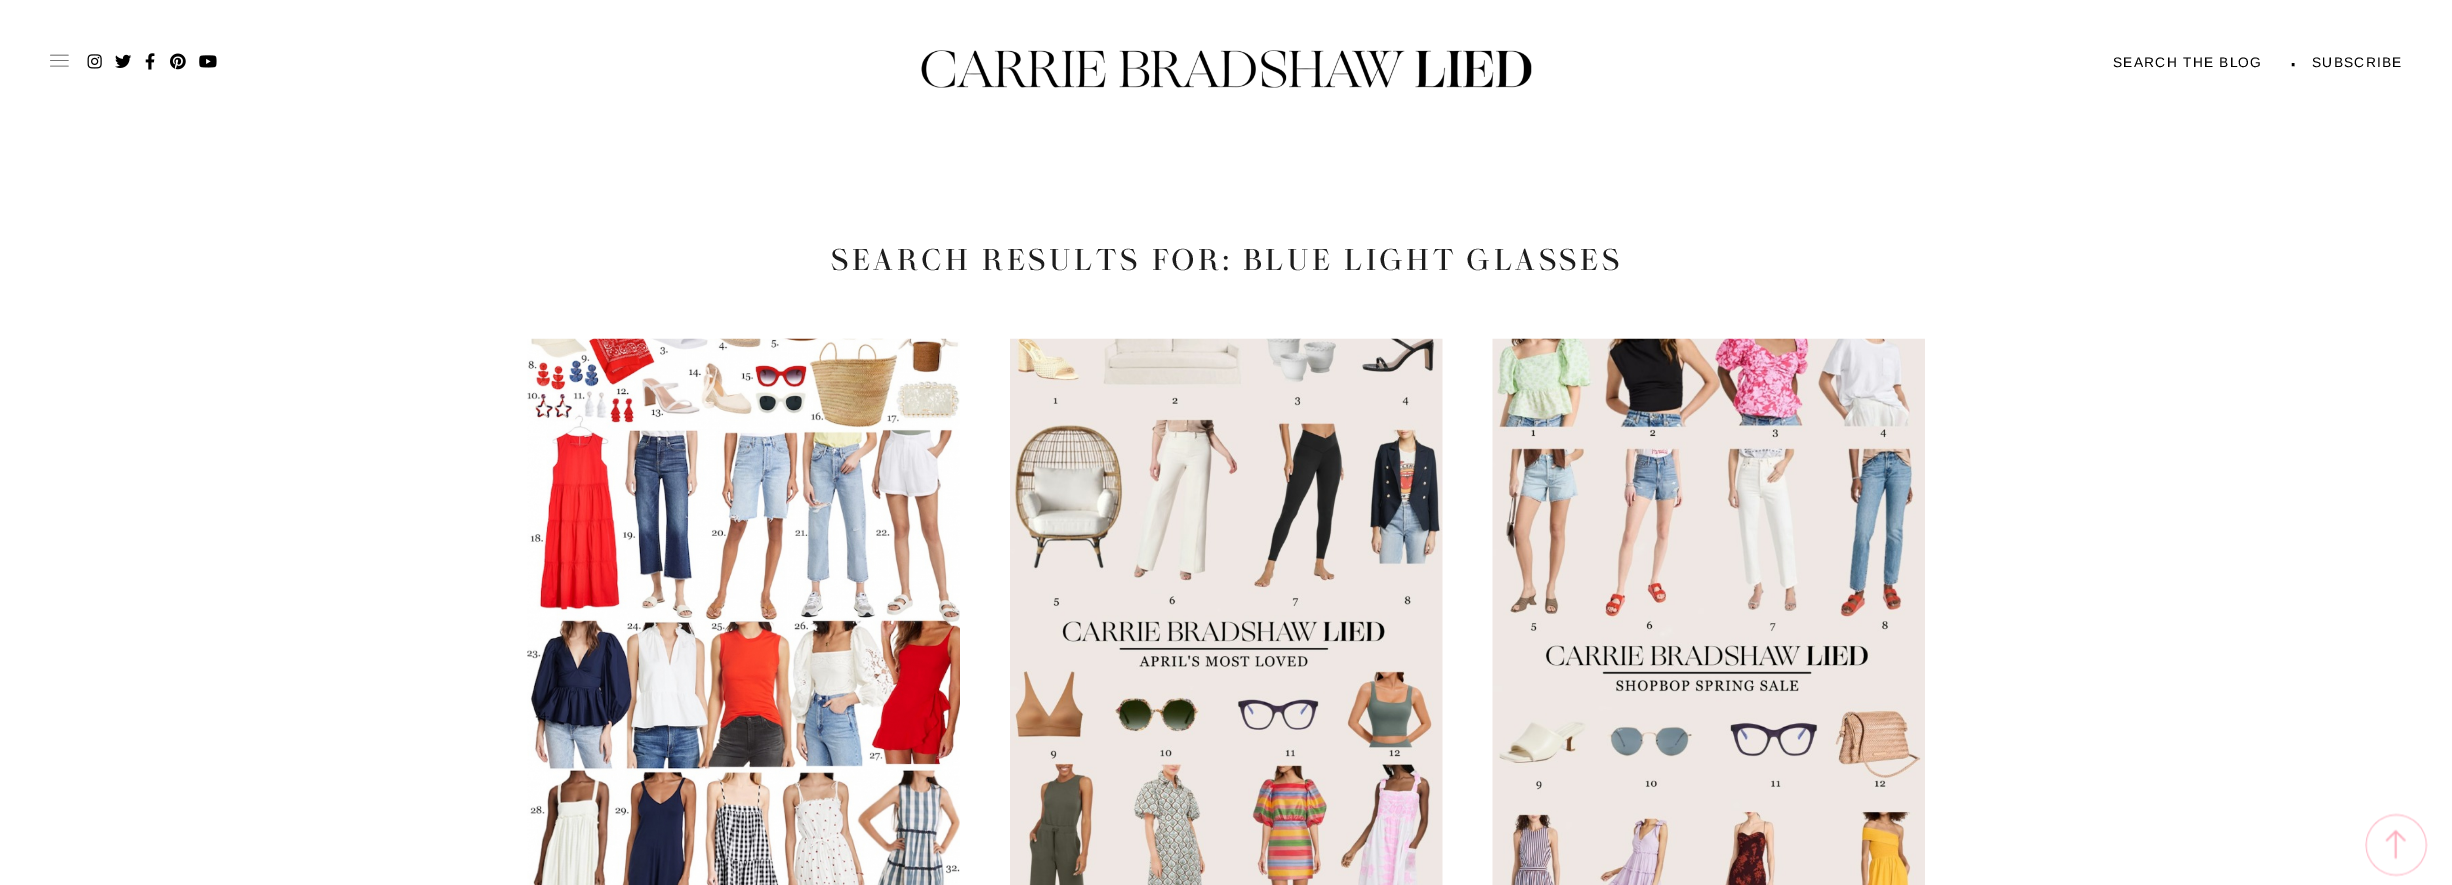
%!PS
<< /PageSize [2452 885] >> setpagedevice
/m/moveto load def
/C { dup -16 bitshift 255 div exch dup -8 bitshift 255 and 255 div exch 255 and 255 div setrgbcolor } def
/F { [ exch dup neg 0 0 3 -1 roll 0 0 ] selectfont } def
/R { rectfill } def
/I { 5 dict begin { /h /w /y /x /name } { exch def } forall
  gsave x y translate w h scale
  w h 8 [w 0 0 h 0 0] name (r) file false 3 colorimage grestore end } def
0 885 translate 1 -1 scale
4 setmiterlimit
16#FFFFFF C
0 0 2452 885 R
(1.rgb) 50 54 19 13 I
(2.rgb) 87 54 15 15 I
(3.rgb) 115 54 17 14 I
(4.rgb) 145 53 10 17 I
(5.rgb) 170 53 16 17 I
(6.rgb) 199 55 18 13 I
(7.rgb) 921 50 611 38 I
/LiberationSans-Regular 13.75 F
16#000000 C
2113 67 m 1.25 0 (SEARCH THE BLOG) ashow
/LiberationSans-Regular 31 F
2288 73 m 1.25 0 (·) ashow
/LiberationSans-Regular 13.75 F
2312 67 m 1.25 0 (SUBSCRIBE) ashow
/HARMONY-Medium 30 F
16#1D1D1D C
831 270 m 3.75 0 (SEARCH RESULTS FOR: BLUE LIGHT GLASSES) ashow
(8.rgb) 527 338 433 547 I
(9.rgb) 1010 338 433 547 I
(10.rgb) 1492 338 433 547 I
(11.rgb) 2365 813 63 64 I
showpage
